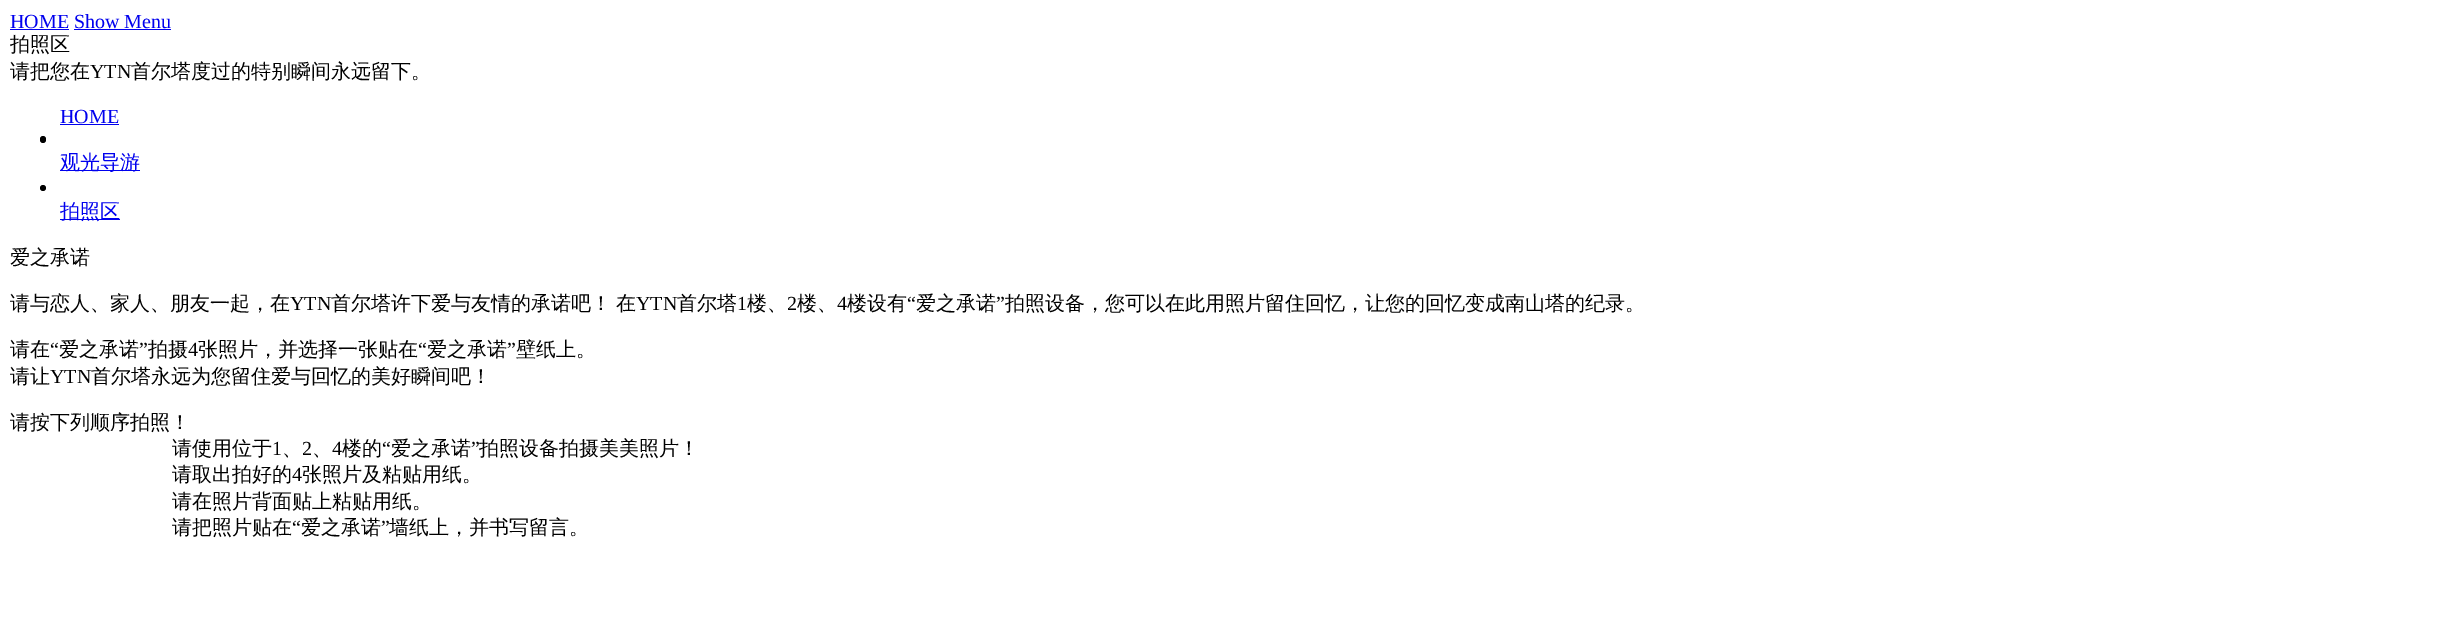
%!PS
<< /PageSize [2442 625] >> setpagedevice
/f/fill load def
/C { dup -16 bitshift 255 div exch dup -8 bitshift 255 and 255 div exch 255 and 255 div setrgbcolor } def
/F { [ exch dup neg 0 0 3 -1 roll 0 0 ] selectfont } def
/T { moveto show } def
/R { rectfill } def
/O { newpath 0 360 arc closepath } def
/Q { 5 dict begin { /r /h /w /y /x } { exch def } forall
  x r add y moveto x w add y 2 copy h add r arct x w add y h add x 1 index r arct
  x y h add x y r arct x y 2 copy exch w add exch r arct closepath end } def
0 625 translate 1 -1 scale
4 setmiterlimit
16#FFFFFF C
0 0 2442 625 R
/LiberationSerif-Regular 20 F
16#0000EE C
(HOME Show Menu) 10 28 T
10 29 59 1 R
74 29 97 1 R
/WenQuanYiZenHei-Medium 20 F
16#000000 C
(拍照区) 10 51 T
(请把您在) 10 78 T
/LiberationSerif-Regular 20 F
(YTN) 90 78 T
/WenQuanYiZenHei-Medium 20 F
(首尔塔度过的特别瞬间永远留下。) 131 78 T
/LiberationSerif-Regular 20 F
16#0000EE C
(HOME) 60 123 T
60 124 59 1 R
16#000000 C
40 136 6 7 3 Q f
16#0000EE C
60 170 80 1 R
/WenQuanYiZenHei-Medium 20 F
(观光导游) 60 169 T
16#000000 C
43 188 3 O f
16#0000EE C
60 219 60 1 R
(拍照区) 60 218 T
16#000000 C
(爱之承诺) 10 264 T
(请与恋人、家人、朋友一起，在) 10 310 T
/LiberationSerif-Regular 20 F
(YTN) 290 310 T
/WenQuanYiZenHei-Medium 20 F
(首尔塔许下爱与友情的承诺吧！) 331 310 T
(在) 616 310 T
/LiberationSerif-Regular 20 F
(YTN) 636 310 T
/WenQuanYiZenHei-Medium 20 F
(首尔塔) 677 310 T
/LiberationSerif-Regular 20 F
(1) 737 310 T
/WenQuanYiZenHei-Medium 20 F
(楼、) 747 310 T
/LiberationSerif-Regular 20 F
(2) 787 310 T
/WenQuanYiZenHei-Medium 20 F
(楼、) 797 310 T
/LiberationSerif-Regular 20 F
(4) 837 310 T
/WenQuanYiZenHei-Medium 20 F
(楼设有) 847 310 T
/LiberationSerif-Regular 20 F
(“) 907 310 T
/WenQuanYiZenHei-Medium 20 F
(爱之承诺) 916 310 T
/LiberationSerif-Regular 20 F
(”) 996 310 T
/WenQuanYiZenHei-Medium 20 F
(拍照设备，您可以在此用照片留住回忆，让您的回忆变成南山塔的纪录。) 1005 310 T
(请在) 10 356 T
/LiberationSerif-Regular 20 F
(“) 50 356 T
/WenQuanYiZenHei-Medium 20 F
(爱之承诺) 59 356 T
/LiberationSerif-Regular 20 F
(”) 139 356 T
/WenQuanYiZenHei-Medium 20 F
(拍摄) 148 356 T
/LiberationSerif-Regular 20 F
(4) 188 356 T
/WenQuanYiZenHei-Medium 20 F
(张照片，并选择一张贴在) 198 356 T
/LiberationSerif-Regular 20 F
(“) 418 356 T
/WenQuanYiZenHei-Medium 20 F
(爱之承诺) 427 356 T
/LiberationSerif-Regular 20 F
(”) 507 356 T
/WenQuanYiZenHei-Medium 20 F
(壁纸上。) 516 356 T
(请让) 10 383 T
/LiberationSerif-Regular 20 F
(YTN) 50 383 T
/WenQuanYiZenHei-Medium 20 F
(首尔塔永远为您留住爱与回忆的美好瞬间吧！) 91 383 T
(请按下列顺序拍照！) 10 429 T
(请使用位于) 172 455 T
/LiberationSerif-Regular 20 F
(1) 272 455 T
(2) 302 455 T
(4) 332 455 T
/WenQuanYiZenHei-Medium 20 F
(楼的) 342 455 T
/LiberationSerif-Regular 20 F
(“) 382 455 T
/WenQuanYiZenHei-Medium 20 F
(爱之承诺) 391 455 T
/LiberationSerif-Regular 20 F
(”) 471 455 T
/WenQuanYiZenHei-Medium 20 F
(拍照设备拍摄美美照片！) 479 455 T
(、) 282 455 T
(、) 312 455 T
(请取出拍好的) 172 481 T
/LiberationSerif-Regular 20 F
(4) 292 481 T
/WenQuanYiZenHei-Medium 20 F
(张照片及粘贴用纸。) 302 481 T
(请在照片背面贴上粘贴用纸。) 172 508 T
(请把照片贴在) 172 534 T
/LiberationSerif-Regular 20 F
(“) 292 534 T
/WenQuanYiZenHei-Medium 20 F
(爱之承诺) 301 534 T
/LiberationSerif-Regular 20 F
(”) 381 534 T
/WenQuanYiZenHei-Medium 20 F
(墙纸上，并书写留言。) 389 534 T
showpage
